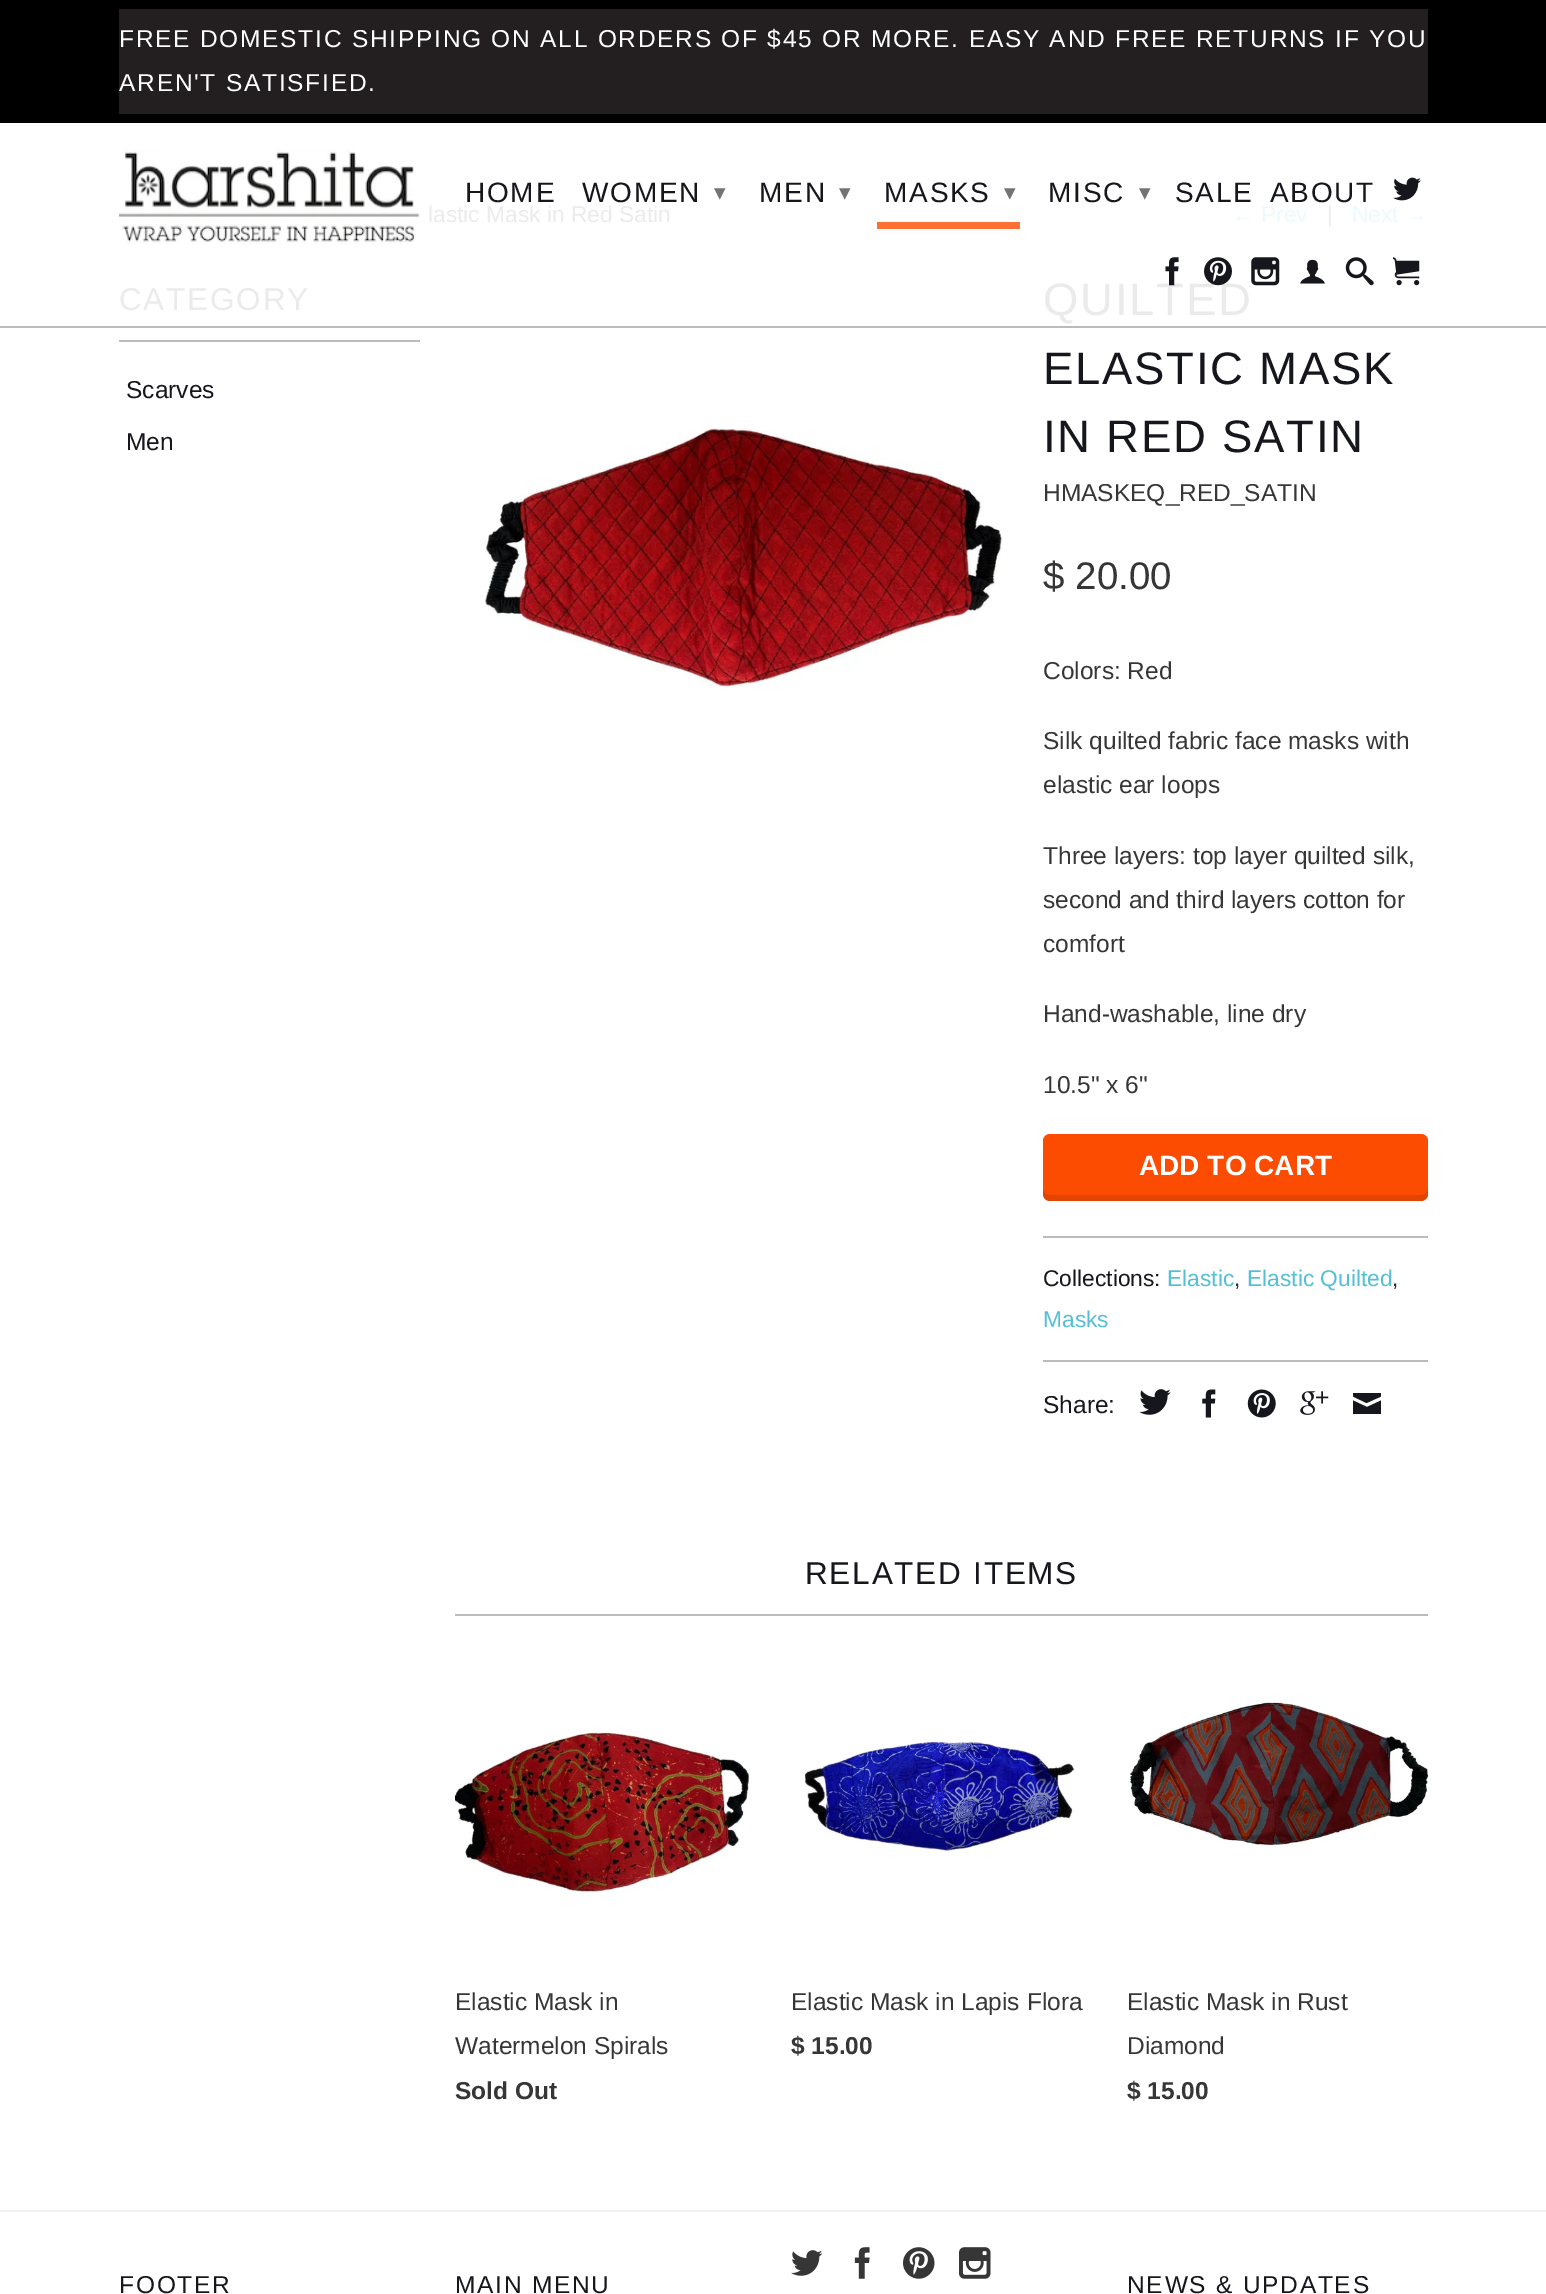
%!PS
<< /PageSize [1546 2294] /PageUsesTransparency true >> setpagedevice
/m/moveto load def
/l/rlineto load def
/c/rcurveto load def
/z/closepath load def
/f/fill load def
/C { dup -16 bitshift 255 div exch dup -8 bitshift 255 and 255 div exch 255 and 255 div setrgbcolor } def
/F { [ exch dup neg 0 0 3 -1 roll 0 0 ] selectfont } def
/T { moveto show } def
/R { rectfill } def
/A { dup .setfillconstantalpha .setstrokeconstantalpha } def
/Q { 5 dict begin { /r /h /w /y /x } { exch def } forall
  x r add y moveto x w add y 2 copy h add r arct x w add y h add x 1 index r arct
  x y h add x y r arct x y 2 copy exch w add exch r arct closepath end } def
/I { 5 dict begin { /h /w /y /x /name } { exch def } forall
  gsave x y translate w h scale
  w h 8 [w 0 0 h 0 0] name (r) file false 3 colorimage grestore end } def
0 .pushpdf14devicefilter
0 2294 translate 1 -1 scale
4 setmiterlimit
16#FFFFFF C
0 0 1546 2294 R
16#BBBBBB C
0 326 1546 2 R
16#000000 C
0 0 1546 123 R
16#231F20 C
119 9 1309 105 R
/LiberationSans-Regular 24.5 F
16#FFFFFF C
119 47 m 1.75 0 (FREE DOMESTIC SHIPPING ON ALL ORDERS OF $45 OR MORE. EASY AND FREE RETURNS IF YOU) ashow
119 91 m 1.75 0 (AREN'T SATISFIED.) ashow
(1.rgb) 119 149 301 95 I
/LiberationSans-Regular 28 F
16#16161D C
465 202 m 1.75 0 (HOME) ashow
582 202 m 1.75 0 (WOMEN) ashow
/DejaVuSans-Regular 23 F
16#737377 C
714 200 m 1.75 0 (▾) ashow
/LiberationSans-Regular 28 F
16#16161D C
759 202 m 1.75 0 (MEN) ashow
/DejaVuSans-Regular 23 F
16#737377 C
839 200 m 1.75 0 (▾) ashow
/LiberationSans-Regular 28 F
16#16161D C
884 202 m 1.75 0 (MASKS) ashow
/DejaVuSans-Regular 23 F
16#737377 C
1004 200 m 1.75 0 (▾) ashow
16#FD7035 C
877 222 143 7 R
/LiberationSans-Regular 28 F
16#16161D C
1048 202 m 1.75 0 (MISC) ashow
/DejaVuSans-Regular 23 F
16#737377 C
1139 200 m 1.75 0 (▾) ashow
/LiberationSans-Regular 28 F
16#16161D C
1175 202 m 1.75 0 (SALE) ashow
1270 202 m 1.75 0 (ABOUT) ashow
(2.rgb) 1393 177 28 24 I
/LiberationSans-Regular 45.5 F
16#EBEBEB C
1043 315 m 1.75 0 (QUILTED) ashow
(3.rgb) 1165 257 14 29 I
(4.rgb) 1204 257 28 29 I
(5.rgb) 1251 257 29 29 I
(6.rgb) 1300 259 25 25 I
(7.rgb) 1345 257 29 29 I
(8.rgb) 1393 257 27 29 I
/LiberationSans-Regular 22.75 F
(lastic Mask in Red Satin) 428 222 T
16#EEF9FB C
(← Prev) 1232 222 T
16#EBEBEB C
(|) 1327 222 T
16#EEF9FB C
(Next →) 1352 222 T
16#BBBBBB C
119 340 301 2 R
/LiberationSans-Regular 31.5 F
16#EBEBEB C
119 310 m 1.75 0 (CATEGORY) ashow
/LiberationSans-Regular 24.5 F
16#16161D C
(Scarves) 126 398 T
(Men) 126 450 T
(9.rgb) 485 428 517 260 I
/LiberationSans-Regular 45.5 F
1043 384 m 1.75 0 (ELASTIC MASK) ashow
1043 452 m 1.75 0 (IN RED SATIN) ashow
/LiberationSans-Regular 24.5 F
16#363636 C
(HMASKEQ_RED_SATIN) 1043 501 T
/LiberationSans-Regular 38.5 F
($ 20.00) 1043 589 T
/LiberationSans-Regular 24.5 F
(Colors: Red) 1043 679 T
(Silk quilted fabric face masks with) 1043 749 T
(elastic ear loops) 1043 793 T
(Three layers: top layer quilted silk,) 1043 864 T
(second and third layers cotton for) 1043 908 T
(comfort) 1043 952 T
(Hand-washable, line dry) 1043 1022 T
(10.5" x 6") 1043 1093 T
16#FC4C02 C
1043 1134 385 67 7 Q f
0.1 A
16#000000 C
1043 1188 m 0 6 l 0 4 3 7 7 7 c 371 0 l 4 0 7 -3 7 -7 c 0 -6 l 0 4 -3 7 -7 7 c -371 0 l -4 0 -7 -3 -7 -7 c z f
/LiberationSans-Bold 28 F
1 A
16#FFFFFF C
(ADD TO CART) 1139 1175 T
16#BBBBBB C
1043 1236 385 2 R
/LiberationSans-Regular 22.75 F
16#16161D C
(Collections:) 1043 1286 T
16#55C0D4 C
(Elastic) 1167 1286 T
16#363636 C
(,) 1234 1286 T
16#55C0D4 C
(Elastic Quilted) 1247 1286 T
16#363636 C
(,) 1392 1286 T
16#55C0D4 C
(Masks) 1043 1327 T
16#BBBBBB C
1043 1360 385 2 R
/LiberationSans-Regular 24.5 F
16#16161D C
(Share:) 1043 1413 T
1366.5 1403 m -13.5 -6.5 l 0 -3.5 l 28 0 l 0 3.5 l z 1367 1407 m 14 -6.5 l 0 13.5 l -28 0 l 0 -13.5 l z f
(10.rgb) 1139 1389 32 26 I
(11.rgb) 1202 1389 14 29 I
(12.rgb) 1247 1389 29 29 I
(13.rgb) 1300 1391 29 24 I
16#BBBBBB C
455 1614 973 2 R
/LiberationSans-Regular 31.5 F
16#16161D C
805 1584 m 1.75 0 (RELATED ITEMS) ashow
(14.rgb) 455 1732 295 160 I
/LiberationSans-Regular 24.5 F
16#363636 C
(Elastic Mask in) 455 2010 T
(Watermelon Spirals) 455 2054 T
/LiberationSans-Bold 24.5 F
(Sold Out) 455 2099 T
(15.rgb) 804 1741 271 112 I
/LiberationSans-Regular 24.5 F
(Elastic Mask in Lapis Flora) 791 2010 T
/LiberationSans-Bold 24.5 F
($ 15.00) 791 2054 T
(16.rgb) 1130 1702 298 144 I
/LiberationSans-Regular 24.5 F
(Elastic Mask in Rust) 1127 2010 T
(Diamond) 1127 2054 T
/LiberationSans-Bold 24.5 F
($ 15.00) 1127 2099 T
16#F1F1F1 C
0 2210 1546 2 R
(17.rgb) 791 2250 32 26 I
(18.rgb) 854 2247 16 32 I
(19.rgb) 903 2247 32 32 I
(20.rgb) 959 2247 32 32 I
/LiberationSans-Regular 24.5 F
16#16161D C
119 2293 m 1.75 0 (FOOTER) ashow
455 2293 m 1.75 0 (MAIN MENU) ashow
1127 2293 m 1.75 0 (NEWS & UPDATES) ashow
.poppdf14devicefilter showpage
